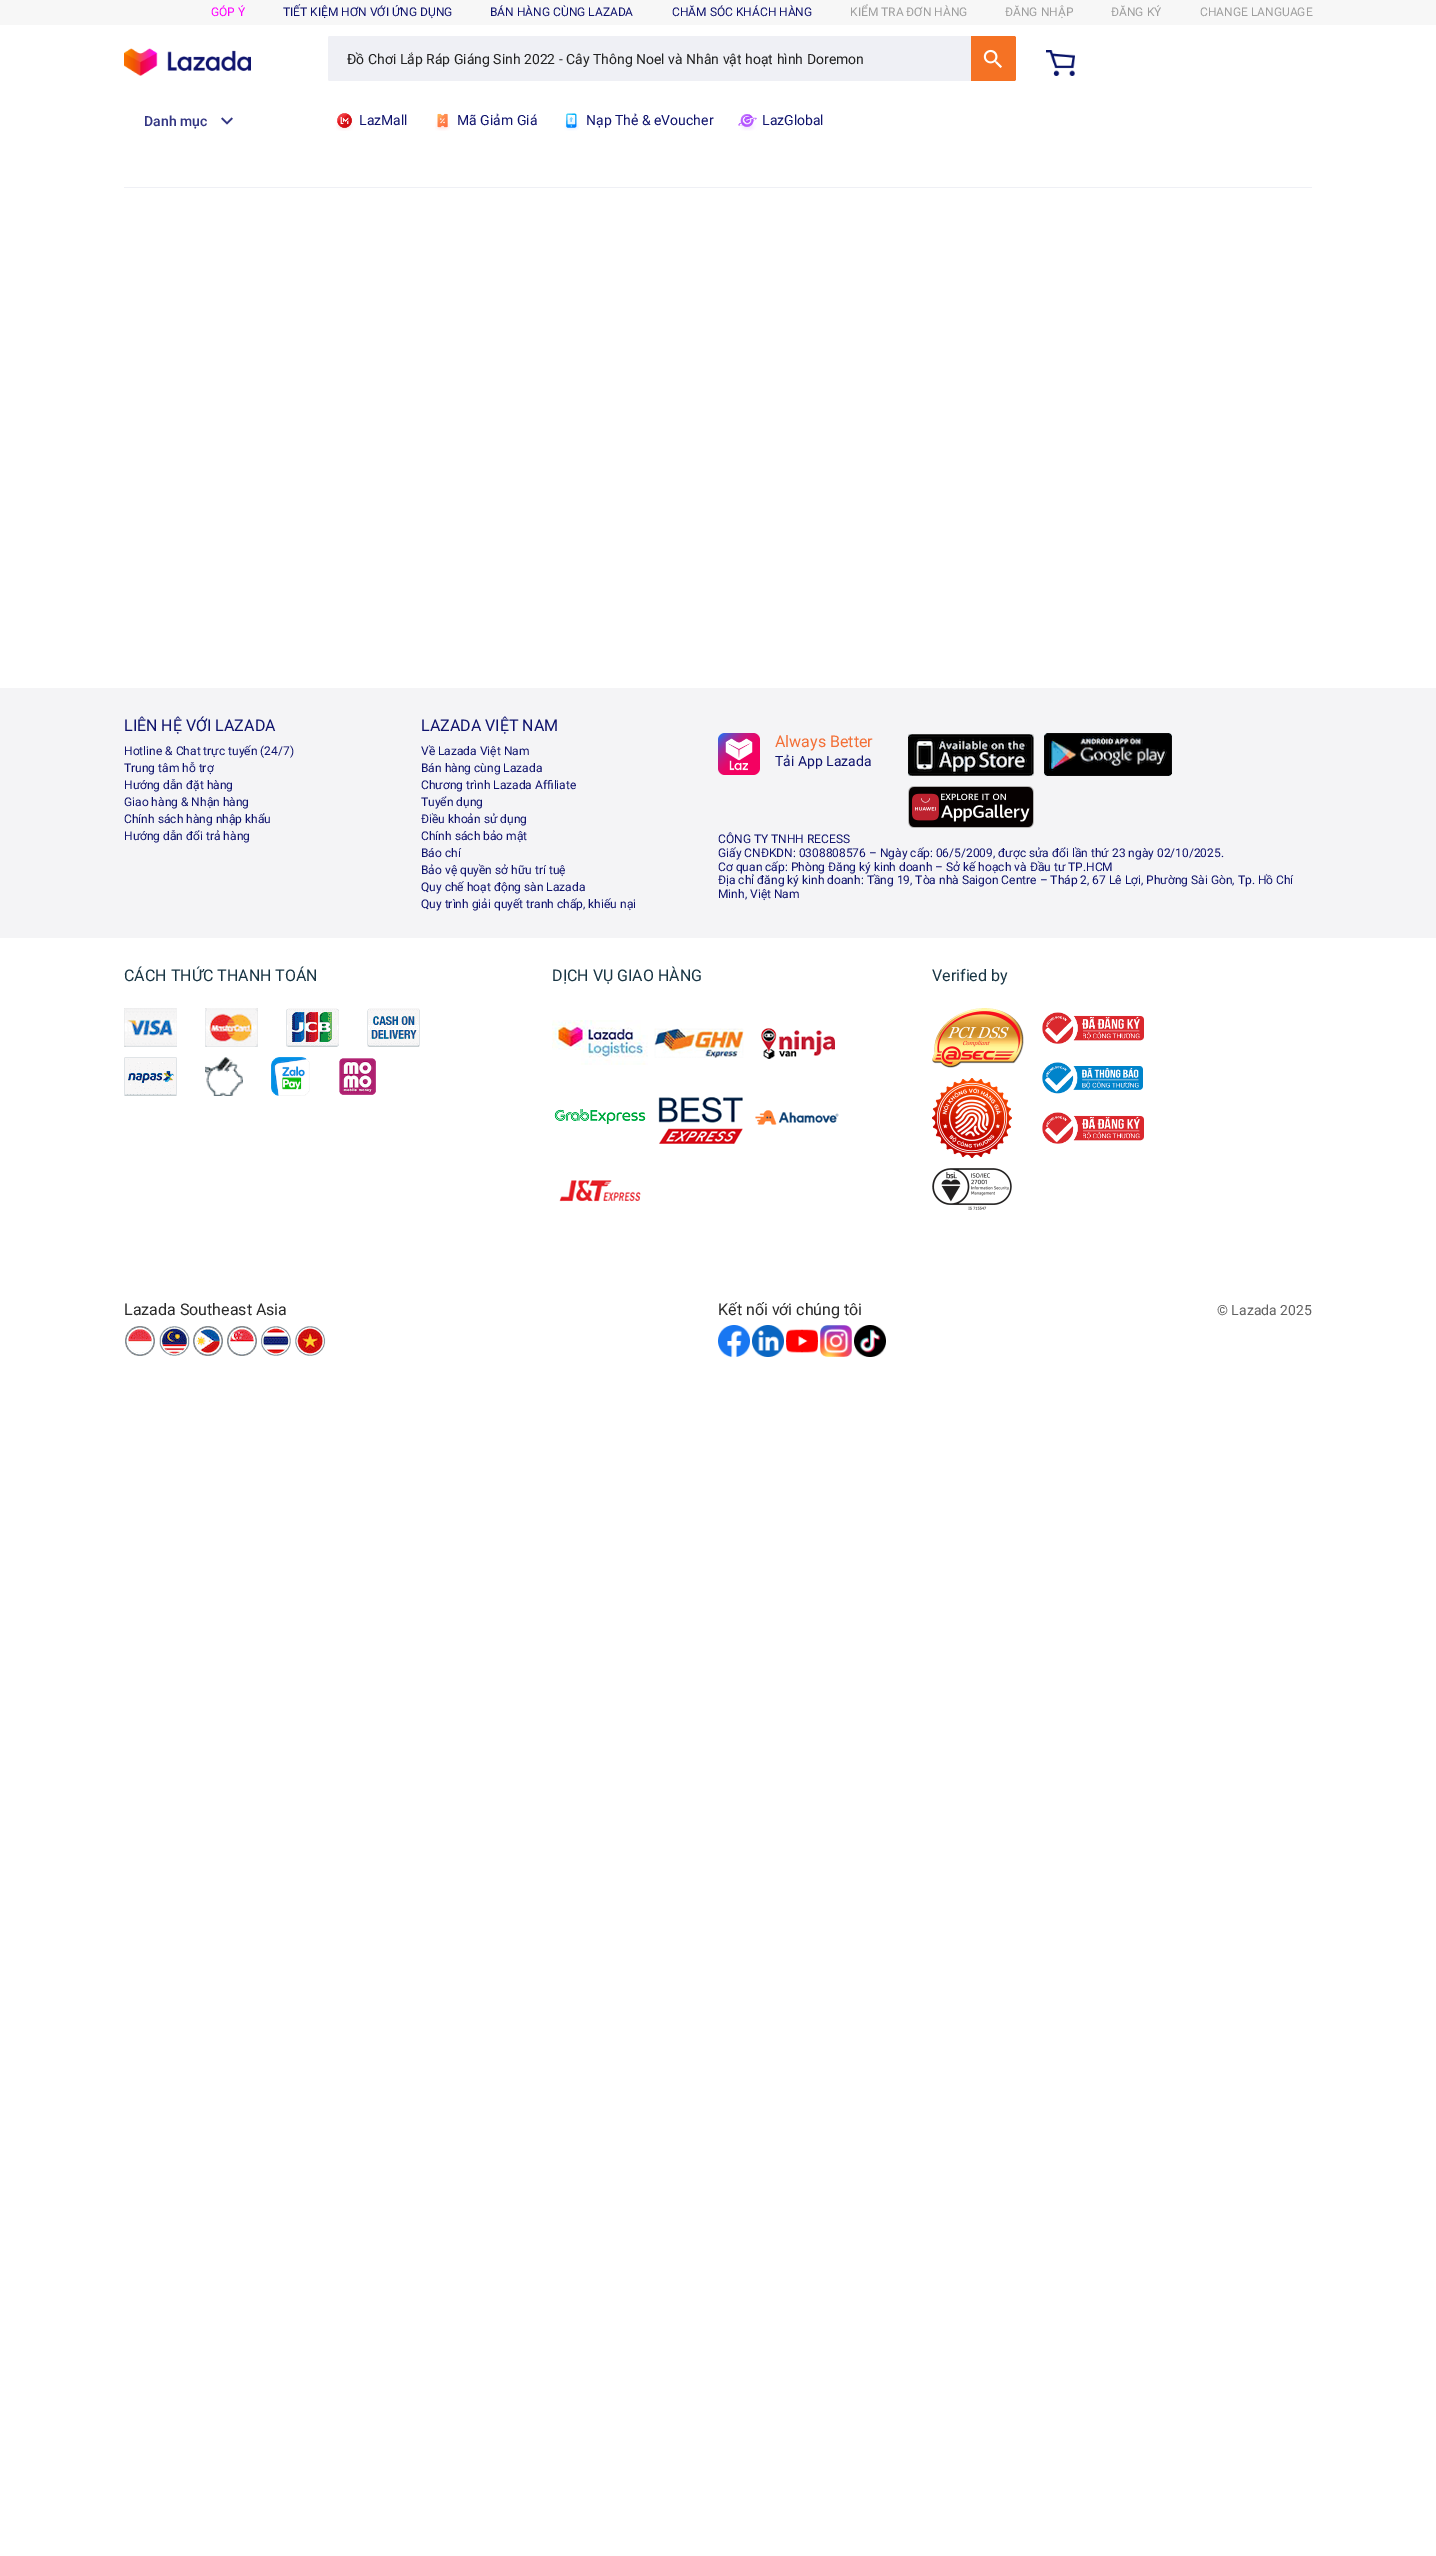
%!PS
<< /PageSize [1436 2556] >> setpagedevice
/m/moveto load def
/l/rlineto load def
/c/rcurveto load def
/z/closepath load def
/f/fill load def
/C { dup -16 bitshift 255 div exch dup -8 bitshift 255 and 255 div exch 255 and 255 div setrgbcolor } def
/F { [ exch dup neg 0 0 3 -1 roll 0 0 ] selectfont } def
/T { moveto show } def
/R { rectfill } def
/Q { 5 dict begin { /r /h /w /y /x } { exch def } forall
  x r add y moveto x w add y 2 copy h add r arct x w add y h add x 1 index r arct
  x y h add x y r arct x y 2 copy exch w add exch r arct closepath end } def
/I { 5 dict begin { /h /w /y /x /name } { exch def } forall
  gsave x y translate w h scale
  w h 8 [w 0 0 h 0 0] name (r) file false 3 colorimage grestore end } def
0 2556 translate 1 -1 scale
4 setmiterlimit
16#FFFFFF C
0 0 1436 2556 R
16#F7F7F7 C
0 0 1436 25 R
/Roboto-Regular 12 F
16#FF00FF C
(GÓP Ý) 211 16 T
16#0F136D C
(TIẾT KIỆM HƠN VỚI ỨNG DỤNG) 283 16 T
(BÁN HÀNG CÙNG LAZADA) 490 16 T
(CHĂM SÓC KHÁCH HÀNG) 672 16 T
16#9E9E9E C
(KIỂM TRA ĐƠN HÀNG) 850 16 T
(ĐĂNG NHẬP) 1005 16 T
(ĐĂNG KÝ) 1111 16 T
(CHANGE LANGUAGE) 1200 16 T
(1.rgb) 124 48 127 28 I
16#EFF0F5 C
328 36 688 45 2 Q f
/Roboto-Regular 14 F
16#212121 C
(Đồ Chơi Lắp Ráp Giáng Sinh 2022 - Cây Thông Noel và Nhân vật hoạt hình Doremon) 347 64 T
16#F57224 C
971 36 m 43 0 l 1 0 2 1 2 2 c 0 41 l 0 1 -1 2 -2 2 c -43 0 l z f
(2.rgb) 983 49 19 19 I
(3.rgb) 1046 50 29 26 I
/Roboto-Medium 14 F
16#333683 C
(Danh mục) 144 126 T
(4.rgb) 221 117 12 8 I
(5.rgb) 336 113 17 18 I
/Roboto-Regular 14 F
16#0F136D C
(LazMall) 359 125 T
(6.rgb) 435 113 15 18 I
(Mã Giảm Giá) 457 125 T
(7.rgb) 564 113 15 18 I
(Nạp Thẻ & eVoucher) 586 125 T
(8.rgb) 738 114 19 17 I
(LazGlobal) 762 125 T
16#EFF0F5 C
124 187 1188 1 R
16#F4F4F6 C
0 688 1436 250 R
/Roboto-Regular 16 F
16#0F136D C
(LIÊN HỆ VỚI LAZADA) 124 731 T
/Roboto-Regular 12 F
(Hotline & Chat trực tuyến \(24/7\)) 124 755 T
(Trung tâm hỗ trợ) 124 772 T
(Hướng dẫn đặt hàng) 124 789 T
(Giao hàng & Nhận hàng) 124 806 T
(Chính sách hàng nhập khẩu) 124 823 T
(Hướng dẫn đổi trả hàng) 124 840 T
/Roboto-Regular 16 F
(LAZADA VIỆT NAM) 421 731 T
/Roboto-Regular 12 F
(Về Lazada Việt Nam) 421 755 T
(Bán hàng cùng Lazada) 421 772 T
/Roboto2-Regular 12 F
(Chương trình Lazada Afﬁliate) 421 789 T
/Roboto-Regular 12 F
(Tuyển dụng) 421 806 T
(Điều khoản sử dụng) 421 823 T
(Chính sách bảo mật) 421 840 T
(Báo chí) 421 857 T
(Bảo vệ quyền sở hữu trí tuệ) 421 874 T
(Quy chế hoạt động sàn Lazada) 421 891 T
(Quy trình giải quyết tranh chấp, khiếu nại) 421 908 T
(9.rgb) 718 733 42 42 I
/Roboto-Regular 16 F
16#F36F36 C
(Always Better) 775 747 T
/Roboto-Regular 14 F
16#0F136D C
(Tải App Lazada) 775 766 T
(10.rgb) 908 734 126 42 I
(11.rgb) 1044 733 128 43 I
(12.rgb) 908 786 126 42 I
/Roboto-Regular 12 F
(CÔNG TY TNHH RECESS) 718 843 T
(Giấy CNĐKDN: 0308808576 – Ngày cấp: 06/5/2009, được sửa đổi lần thứ 23 ngày 02/10/2025.) 718 857 T
(Cơ quan cấp: Phòng Đăng ký kinh doanh – Sở kế hoạch và Đầu tư TP.HCM) 718 871 T
(Địa chỉ đăng ký kinh doanh: Tầng 19, Tòa nhà Saigon Centre – Tháp 2, 67 Lê Lợi, Phường Sài Gòn, Tp. Hồ Chí) 718 884 T
(Minh, Việt Nam) 718 898 T
/Roboto-Regular 16 F
16#183544 C
(CÁCH THỨC THANH TOÁN) 124 981 T
(13.rgb) 124 1008 53 39 I
(14.rgb) 205 1008 53 39 I
(15.rgb) 286 1008 53 39 I
(16.rgb) 367 1008 53 39 I
(17.rgb) 124 1057 53 39 I
(18.rgb) 205 1057 38 39 I
(19.rgb) 271 1057 39 39 I
(20.rgb) 339 1058 37 37 I
(DỊCH VỤ GIAO HÀNG) 552 981 T
(21.rgb) 552 1020 96 45 I
(22.rgb) 654 1028 90 30 I
(23.rgb) 761 1028 74 31 I
(24.rgb) 554 1109 92 15 I
(25.rgb) 658 1097 85 47 I
(26.rgb) 755 1110 84 15 I
(27.rgb) 559 1180 82 22 I
(Verified by) 932 981 T
(28.rgb) 932 1008 92 60 I
(29.rgb) 932 1078 80 80 I
(30.rgb) 932 1168 80 42 I
(31.rgb) 1042 1012 102 32 I
(32.rgb) 1042 1062 101 32 I
(33.rgb) 1042 1112 102 32 I
16#2A2A2A C
(Lazada Southeast Asia) 124 1315 T
(34.rgb) 125 1326 30 30 I
(35.rgb) 159 1326 31 30 I
(36.rgb) 193 1326 30 30 I
(37.rgb) 227 1326 30 30 I
(38.rgb) 260 1326 31 30 I
(39.rgb) 295 1326 31 30 I
(Kết nối với chúng tôi) 718 1315 T
(40.rgb) 718 1325 32 32 I
(41.rgb) 752 1325 32 32 I
(42.rgb) 786 1329 32 24 I
(43.rgb) 820 1325 32 32 I
(44.rgb) 854 1325 32 32 I
/Roboto-Regular 14 F
16#606060 C
(© Lazada 2025) 1217 1315 T
showpage
